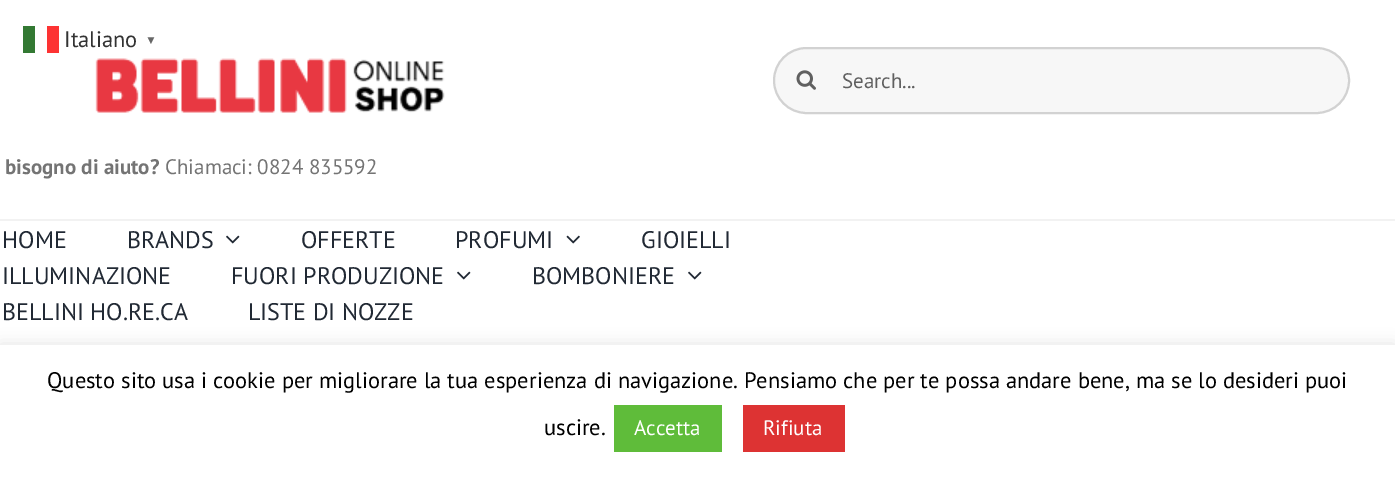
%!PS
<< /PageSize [1395 477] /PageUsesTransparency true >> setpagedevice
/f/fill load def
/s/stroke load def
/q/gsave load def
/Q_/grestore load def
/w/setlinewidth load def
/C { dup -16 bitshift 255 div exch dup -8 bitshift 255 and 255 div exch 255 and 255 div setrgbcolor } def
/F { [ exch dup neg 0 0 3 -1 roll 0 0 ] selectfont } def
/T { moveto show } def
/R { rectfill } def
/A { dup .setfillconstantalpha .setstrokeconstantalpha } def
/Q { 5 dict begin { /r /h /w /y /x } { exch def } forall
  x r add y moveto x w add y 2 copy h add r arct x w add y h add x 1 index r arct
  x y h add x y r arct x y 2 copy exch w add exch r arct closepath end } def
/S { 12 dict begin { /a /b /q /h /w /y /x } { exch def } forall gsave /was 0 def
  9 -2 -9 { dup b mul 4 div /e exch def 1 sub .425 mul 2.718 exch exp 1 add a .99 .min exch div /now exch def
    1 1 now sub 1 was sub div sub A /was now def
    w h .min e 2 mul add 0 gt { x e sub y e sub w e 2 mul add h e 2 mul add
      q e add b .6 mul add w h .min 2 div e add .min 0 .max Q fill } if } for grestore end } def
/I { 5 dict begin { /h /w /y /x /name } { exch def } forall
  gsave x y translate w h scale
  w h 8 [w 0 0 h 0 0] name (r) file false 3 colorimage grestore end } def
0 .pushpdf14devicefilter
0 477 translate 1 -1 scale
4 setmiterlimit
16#FFFFFF C
0 0 1395 477 R
/PTSans-Regular 22.5 F
16#333333 C
(Italiano) 64 47 T
16#337933 C
23 26 12 27 R
16#FD3333 C
47 26 12 27 R
/LiberationSerif-Bold 12 F
16#666666 C
(▼) 145 44 T
16#ACABAB C
0 344 1395 132 0 7.5 .3 S
16#FFFFFF C
0 345 1395 132 R
/PTSans-Regular 22.5 F
16#000000 C
(Questo sito usa i cookie per migliorare la tua esperienza di navigazione. Pensiamo che per te possa andare bene, ma se lo desideri puoi) 47 388 T
(uscire.) 544 435 T
16#5FBC3A C
614 405 108 47 R
/PTSans-Regular 21 F
16#FFFFFF C
(Accetta) 634 435 T
16#DD3333 C
743 405 102 47 R
16#FFFFFF C
(Rifiuta) 763 435 T
16#F2F2F2 C
0 219 1395 2 R
(1.rgb) 95 58 350 55 I
16#F7F7F7 C
774 48 575 65 32.5 Q q f Q_
16#D2D2D2 C
2 w
s
(2.rgb) 796 70 20 20 I
16#606060 C
(Search...) 842 88 T
/PTSans-Bold 21 F
16#747474 C
(bisogno di aiuto?) 5 174 T
/PTSans-Regular 21 F
(Chiamaci: 0824 835592) 165 174 T
/PTSans-Regular 24 F
16#212934 C
(HOME) 2 248 T
(BRANDS) 127 248 T
(3.rgb) 226 235 14 9 I
(OFFERTE) 301 248 T
(PROFUMI) 455 248 T
(4.rgb) 566 235 14 9 I
(GIOIELLI) 641 248 T
(ILLUMINAZIONE) 2 284 T
(FUORI PRODUZIONE) 231 284 T
(3.rgb) 457 271 14 9 I
(BOMBONIERE) 532 284 T
(3.rgb) 688 271 14 9 I
(BELLINI HO.RE.CA) 2 320 T
(LISTE DI NOZZE) 248 320 T
.poppdf14devicefilter showpage
